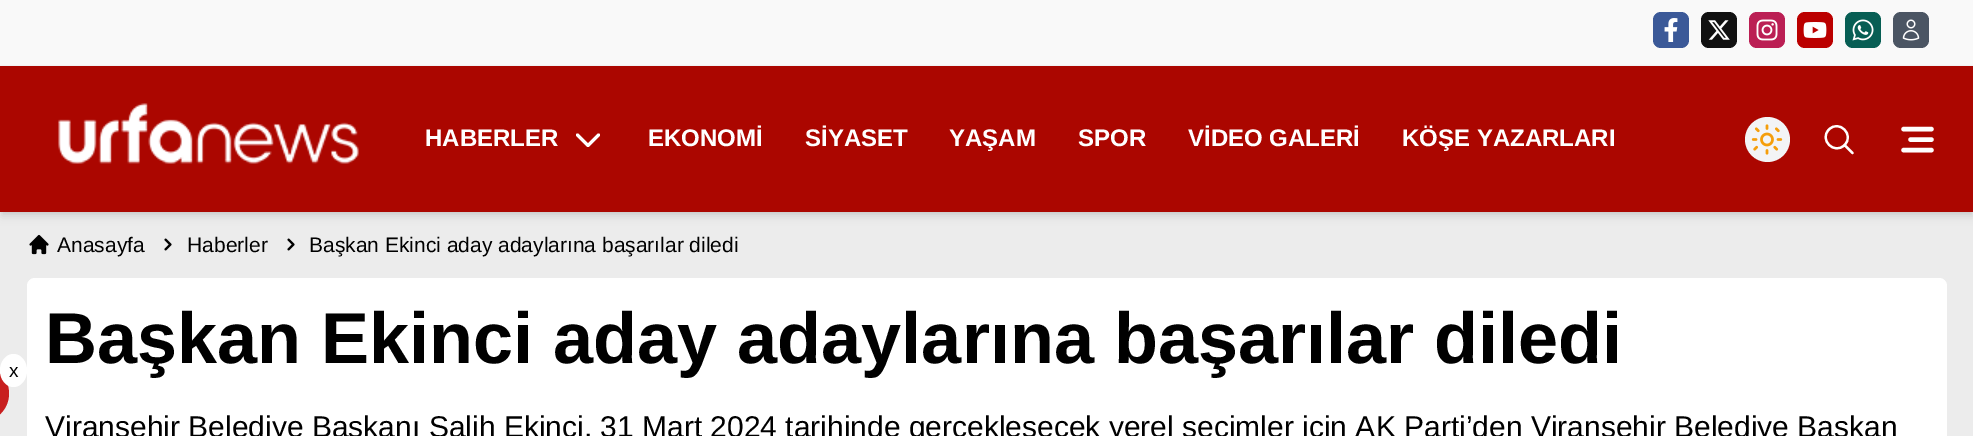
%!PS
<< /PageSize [1973 436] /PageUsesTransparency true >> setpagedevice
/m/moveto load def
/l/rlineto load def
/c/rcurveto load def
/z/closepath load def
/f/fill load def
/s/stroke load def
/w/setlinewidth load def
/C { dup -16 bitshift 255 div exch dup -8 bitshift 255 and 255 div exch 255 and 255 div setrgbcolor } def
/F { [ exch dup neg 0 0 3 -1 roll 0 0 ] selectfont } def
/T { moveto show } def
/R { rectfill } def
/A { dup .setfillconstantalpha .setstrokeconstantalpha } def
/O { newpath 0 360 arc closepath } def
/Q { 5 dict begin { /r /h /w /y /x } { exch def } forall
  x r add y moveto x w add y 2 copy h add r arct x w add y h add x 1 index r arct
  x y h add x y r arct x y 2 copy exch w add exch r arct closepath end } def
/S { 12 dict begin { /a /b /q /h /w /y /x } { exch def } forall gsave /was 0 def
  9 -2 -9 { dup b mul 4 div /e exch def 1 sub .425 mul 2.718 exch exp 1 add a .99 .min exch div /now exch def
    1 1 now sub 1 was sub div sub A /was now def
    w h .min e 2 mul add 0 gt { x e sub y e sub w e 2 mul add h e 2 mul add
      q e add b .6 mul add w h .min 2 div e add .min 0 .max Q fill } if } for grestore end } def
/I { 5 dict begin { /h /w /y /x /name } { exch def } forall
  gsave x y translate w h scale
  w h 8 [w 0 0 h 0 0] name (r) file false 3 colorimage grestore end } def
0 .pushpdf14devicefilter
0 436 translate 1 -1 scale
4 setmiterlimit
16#ECECEC C
0 0 1973 436 R
16#F9F9F9 C
0 0 1973 65 R
16#F3F4F6 C
0 65 1973 1 R
16#3B5998 C
1653 12 36 36 8 Q f
(1.rgb) 1664 18 14 24 I
16#111111 C
1701 12 36 36 8 Q f
(2.rgb) 1708 20 22 20 I
16#BB1F54 C
1749 12 36 36 8 Q f
(3.rgb) 1756 19 22 22 I
16#BB0000 C
1797 12 36 36 8 Q f
(4.rgb) 1803 22 24 16 I
16#075E54 C
1845 12 36 36 8 Q f
(5.rgb) 1852 19 22 22 I
16#4B5563 C
1893 12 36 36 8 Q f
(6.rgb) 1902 19 18 22 I
16#000000 C
3 72 1968 140 0 3 .1 S
2 74 1971 142 0 4.5 .1 S
16#AB0600 C
0 66 1973 146 R
(7.rgb) 58 103 301 61 I
/LiberationSans-Bold 24 F
16#FFFFFF C
(HABERLER) 425 146 T
3 w
1 setlinecap
1 setlinejoin
598.5 135 m -10.5 10.5 l -10.5 -10.5 l s
(EKONOMİ) 648 146 T
(SİYASET) 805 146 T
(YAŞAM) 949 146 T
(SPOR) 1078 146 T
(VİDEO GALERİ) 1188 146 T
(KÖŞE YAZARLARI) 1402 146 T
16#F3F4F6 C
1767.5 139.5 22.5 O f
(8.rgb) 1751 124 32 31 I
16#FFFFFF C
2.2 w
1852.5 153 m -8 -8 l 1844.5 145 m 10.5 -10 -5.5 -26 -15.5 -15.5 c -10.5 10 5.5 26 15.5 15.5 c z s
4.4 w
1931.5 129 m -28 0 l 1931.5 139.5 m -21 0 l 1931.5 150 m -28 0 l s
16#C81E1E C
-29 365 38 57 28.5 Q f
16#FFFFFF C
13.5 354 m 7.5 0 13.5 7.5 13.5 16.5 c 0 9 -6 16.5 -13.5 16.5 c -7.5 0 -13.5 -7.5 -13.5 -16.5 c 0 -9 6 -16.5 13.5 -16.5 c z f
/LiberationSans-Regular 19 F
16#000000 C
(x) 9 377 T
(9.rgb) 29 234 20 21 I
/LiberationSans-Regular 21 F
(Anasayfa) 57 252 T
(10.rgb) 164 238 8 13 I
(Haberler) 187 252 T
(10.rgb) 287 238 8 13 I
(Başkan Ekinci aday adaylarına başarılar diledi) 309 252 T
16#FFFFFF C
27 278 1920 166 8 Q f
/LiberationSans-Bold 72 F
16#000000 C
(Başkan Ekinci aday adaylarına başarılar diledi) 45 363 T
/LiberationSans-Regular 30 F
(Viranşehir Belediye Başkanı Salih Ekinci, 31 Mart 2024 tarihinde gerçekleşecek yerel seçimler için AK Parti’den Viranşehir Belediye Başkan) 45 437 T
.poppdf14devicefilter showpage
